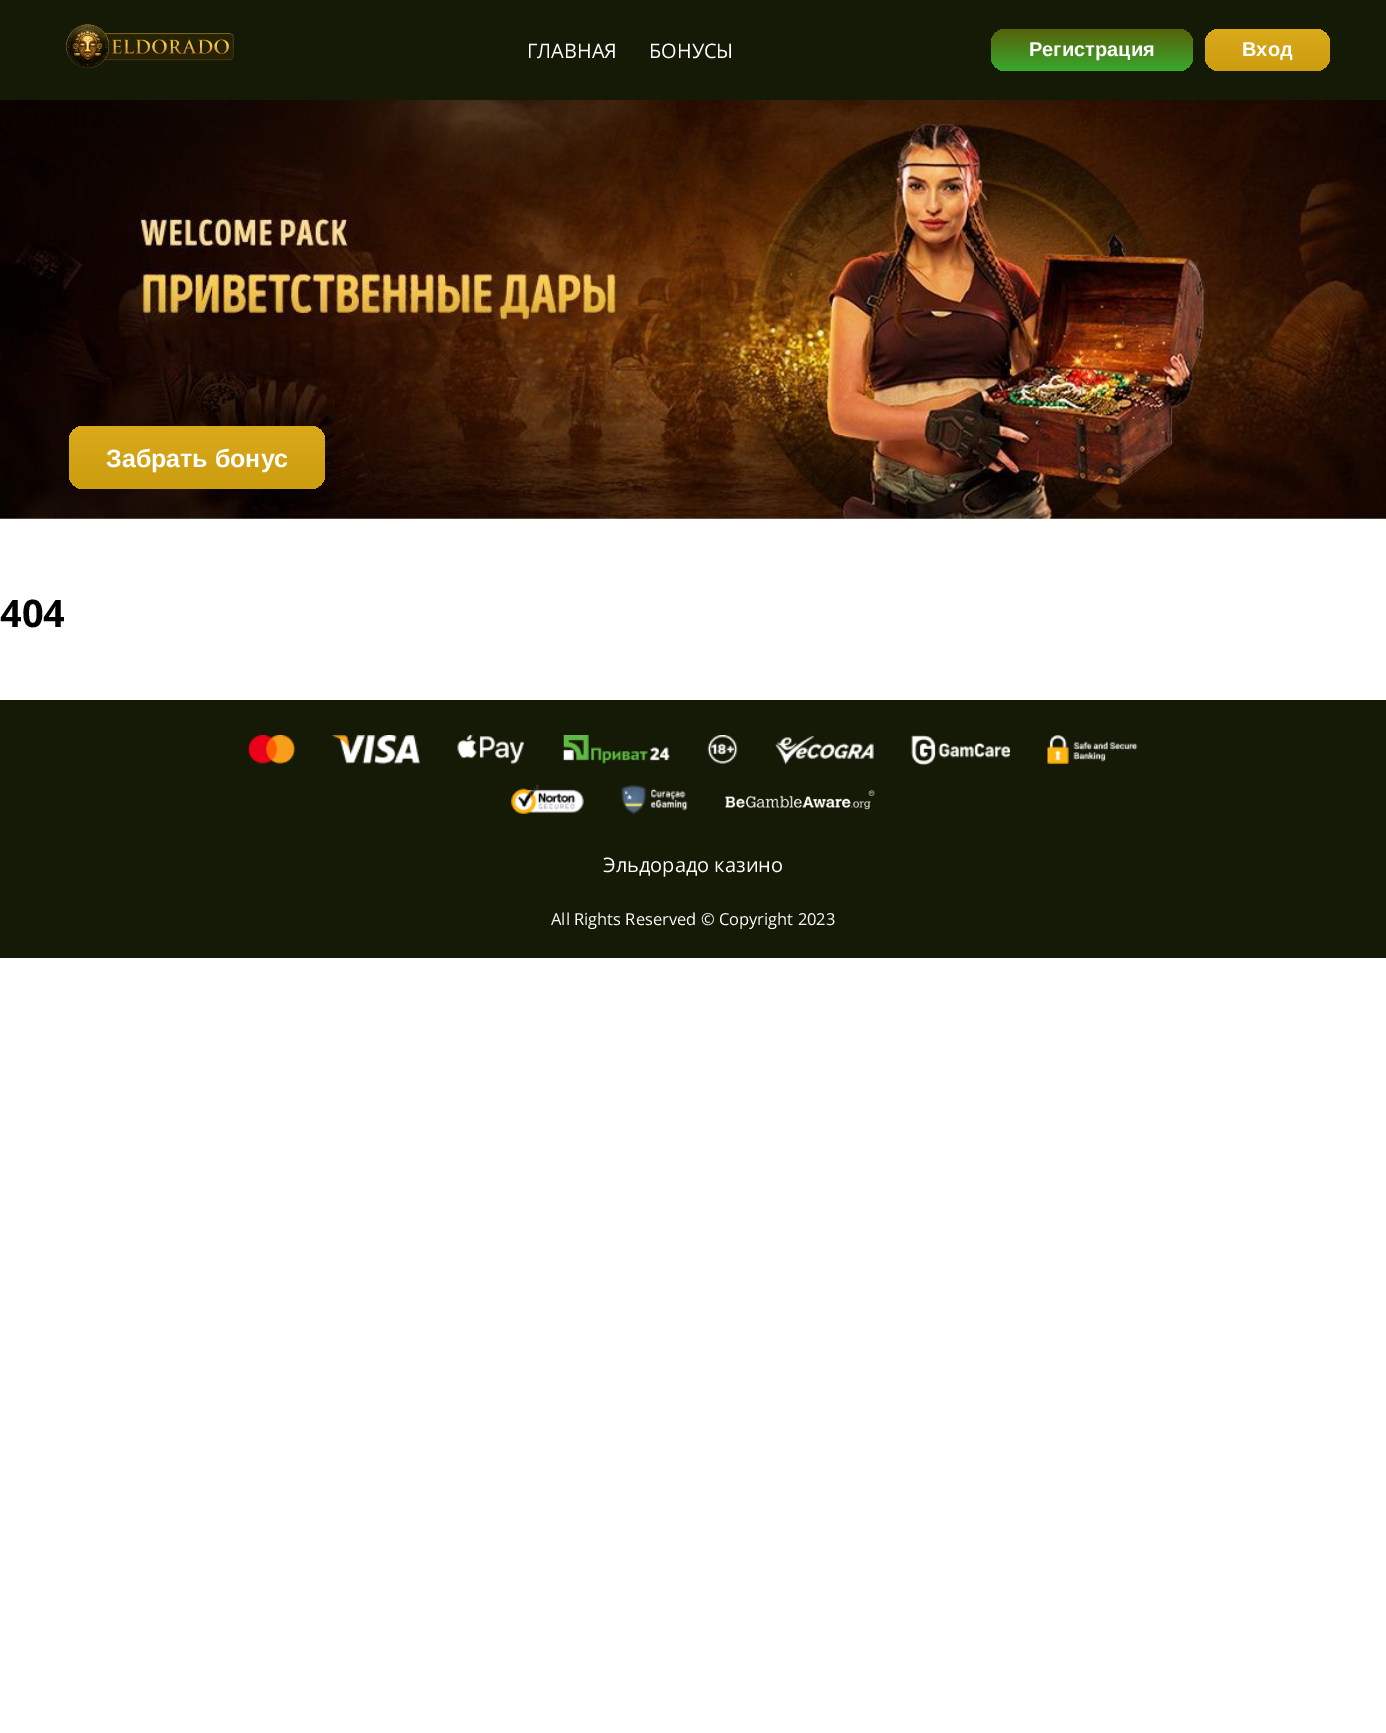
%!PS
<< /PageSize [1386 1733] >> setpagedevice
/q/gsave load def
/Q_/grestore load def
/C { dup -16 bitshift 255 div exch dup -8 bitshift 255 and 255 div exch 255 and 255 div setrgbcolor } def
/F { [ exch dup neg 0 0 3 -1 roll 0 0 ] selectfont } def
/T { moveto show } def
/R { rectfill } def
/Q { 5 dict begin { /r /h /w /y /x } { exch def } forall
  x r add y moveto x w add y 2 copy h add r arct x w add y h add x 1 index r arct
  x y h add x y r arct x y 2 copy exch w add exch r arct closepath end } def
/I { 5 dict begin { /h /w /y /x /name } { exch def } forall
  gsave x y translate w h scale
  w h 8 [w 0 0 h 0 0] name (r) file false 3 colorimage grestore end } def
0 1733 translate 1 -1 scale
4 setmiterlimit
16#FFFFFF C
0 0 1386 1733 R
16#151A06 C
0 0 1386 100 R
(1.rgb) 65 24 169 45 I
/OpenSans-Regular 20 F
16#FFFFFF C
(ГЛАВНАЯ) 527 58 T
(БОНУСЫ) 649 58 T
q 991 29 202 42 15 Q clip newpath
<< /ShadingType 2 /ColorSpace /DeviceRGB /Coords [1092 29 1092 71] /Extend [true true] /Function << /FunctionType 3 /Domain [0 1] /Functions [<< /FunctionType 2 /Domain [0 1] /C0 [.337 .396 .043] /C1 [.337 .396 .043] /N 1 >> << /FunctionType 2 /Domain [0 1] /C0 [.337 .396 .043] /C1 [.224 .659 .184] /N 1 >>] /Bounds [.05] /Encode [0 1 0 1] >> >> shfill Q_
/LiberationSans-Bold 20 F
(Регистрация) 1029 56 T
q 1205 29 125 42 15 Q clip newpath
<< /ShadingType 2 /ColorSpace /DeviceRGB /Coords [1268 29 1268 71] /Extend [true true] /Function << /FunctionType 3 /Domain [0 1] /Functions [<< /FunctionType 2 /Domain [0 1] /C0 [.851 .663 .102] /C1 [.851 .663 .102] /N 1 >> << /FunctionType 2 /Domain [0 1] /C0 [.851 .663 .102] /C1 [.8 .616 .063] /N 1 >>] /Bounds [.05] /Encode [0 1 0 1] >> >> shfill Q_
(Вход) 1242 56 T
(2.rgb) 0 100 1386 419 I
q 69 426 256 63 15 Q clip newpath
<< /ShadingType 2 /ColorSpace /DeviceRGB /Coords [197 426 197 489] /Extend [true true] /Function << /FunctionType 3 /Domain [0 1] /Functions [<< /FunctionType 2 /Domain [0 1] /C0 [.851 .663 .102] /C1 [.851 .663 .102] /N 1 >> << /FunctionType 2 /Domain [0 1] /C0 [.851 .663 .102] /C1 [.8 .616 .063] /N 1 >>] /Bounds [.05] /Encode [0 1 0 1] >> >> shfill Q_
/LiberationSans-Bold 25 F
(Забрать бонус) 106 467 T
/OpenSans-Bold 38 F
16#000000 C
(404) 0 627 T
16#151A06 C
0 700 1386 258 R
(3.rgb) 248 735 47 29 I
(4.rgb) 332 735 88 29 I
(5.rgb) 457 735 67 29 I
(6.rgb) 563 735 107 29 I
(7.rgb) 707 735 31 29 I
(8.rgb) 775 735 99 30 I
(9.rgb) 911 735 99 30 I
(10.rgb) 1047 735 91 29 I
(11.rgb) 511 785 73 29 I
(12.rgb) 621 785 67 29 I
(13.rgb) 725 790 150 20 I
/OpenSans-Regular 20 F
16#FFFFFF C
(Эльдорадо казино) 603 872 T
/OpenSans-Regular 16.5 F
(All Rights Reserved © Copyright 2023) 551 925 T
showpage
